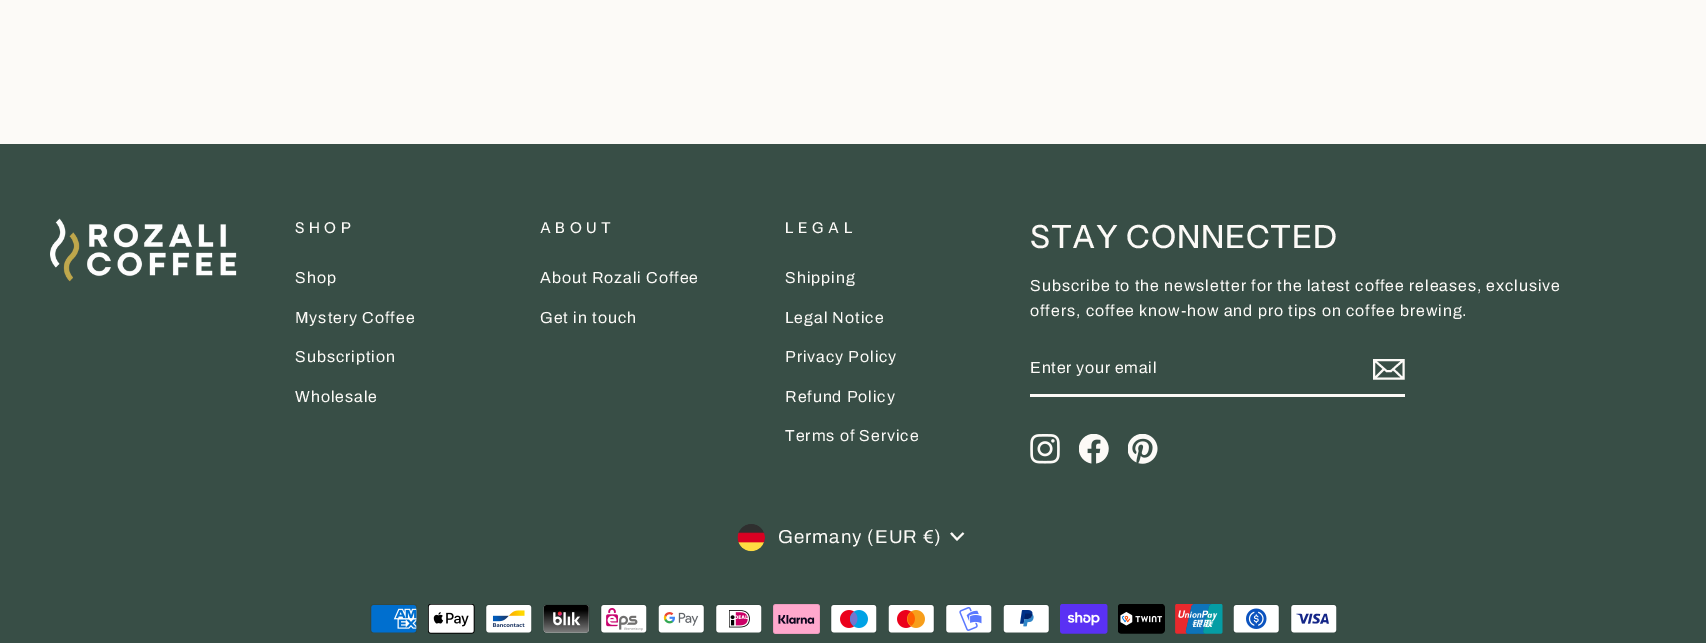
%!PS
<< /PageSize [1706 643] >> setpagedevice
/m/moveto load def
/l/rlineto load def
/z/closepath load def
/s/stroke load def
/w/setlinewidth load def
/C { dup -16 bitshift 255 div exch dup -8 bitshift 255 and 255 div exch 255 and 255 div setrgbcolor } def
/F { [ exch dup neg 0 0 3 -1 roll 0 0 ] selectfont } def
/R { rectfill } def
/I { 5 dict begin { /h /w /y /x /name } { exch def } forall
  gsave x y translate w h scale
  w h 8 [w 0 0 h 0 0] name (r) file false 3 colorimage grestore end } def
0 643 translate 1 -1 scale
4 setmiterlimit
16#FCFAF7 C
0 0 1706 643 R
16#384E46 C
0 144 1706 499 R
(1.rgb) 50 218 187 64 I
/InstrumentSans-Medium 15 F
16#FCFAF7 C
295 233 m 4.5 0 (SHOP) ashow
/Archivo-Regular 15.95 F
295 283 m .95 0 (Shop) ashow
295 323 m .95 0 (Mystery Coffee) ashow
295 362 m .95 0 (Subscription) ashow
295 402 m .95 0 (Wholesale) ashow
/InstrumentSans-Medium 15 F
540 233 m 4.5 0 (ABOUT) ashow
/Archivo-Regular 15.95 F
540 283 m .95 0 (About Rozali Coffee) ashow
540 323 m .95 0 (Get in touch) ashow
/InstrumentSans-Medium 15 F
785 233 m 4.5 0 (LEGAL) ashow
/Archivo-Regular 15.95 F
785 283 m .95 0 (Shipping) ashow
785 323 m .95 0 (Legal Notice) ashow
785 362 m .95 0 (Privacy Policy) ashow
785 402 m .95 0 (Refund Policy) ashow
785 441 m .95 0 (Terms of Service) ashow
/InstrumentSans-Medium 31.9 F
1030 248 m .75 0 (STAY CONNECTED) ashow
/Archivo-Regular 15.95 F
1030 291 m .95 0 (Subscribe to the newsletter for the latest coffee releases, exclusive) ashow
1030 316 m .95 0 (offers, coffee know-how and pro tips on coffee brewing.) ashow
1030 394 375 3 R
1030 373 m .75 0 (Enter your email) ashow
1.9 w
1403.5 378.5 m -29.5 0 l 0 -18.5 l 29.5 0 l z 1374 360 m 12.5 11 l 4.5 0 l 12.5 -11 l 1384 369 m -9.5 9.5 l 1403 378.5 m -10 -9.5 l s
(2.rgb) 1030 434 30 30 I
(3.rgb) 1079 434 30 30 I
(4.rgb) 1128 434 30 30 I
(5.rgb) 737 524 28 28 I
/Archivo-Regular 18.75 F
778 543 m .95 0 (Germany \(EUR €\)) ashow
2 w
951 533 m 6 6.5 l 6.5 -6.5 l s
(6.rgb) 370 604 47 29 I
(7.rgb) 428 604 47 30 I
(8.rgb) 485 604 47 29 I
(9.rgb) 543 604 47 29 I
(10.rgb) 600 604 47 29 I
(11.rgb) 658 604 47 29 I
(12.rgb) 715 604 47 29 I
(13.rgb) 773 604 47 30 I
(14.rgb) 830 604 47 29 I
(15.rgb) 888 604 47 29 I
(16.rgb) 945 604 47 29 I
(17.rgb) 1003 604 47 29 I
(18.rgb) 1060 604 48 30 I
(19.rgb) 1118 604 47 30 I
(20.rgb) 1175 604 48 30 I
(21.rgb) 1233 604 47 29 I
(22.rgb) 1290 604 47 29 I
showpage
